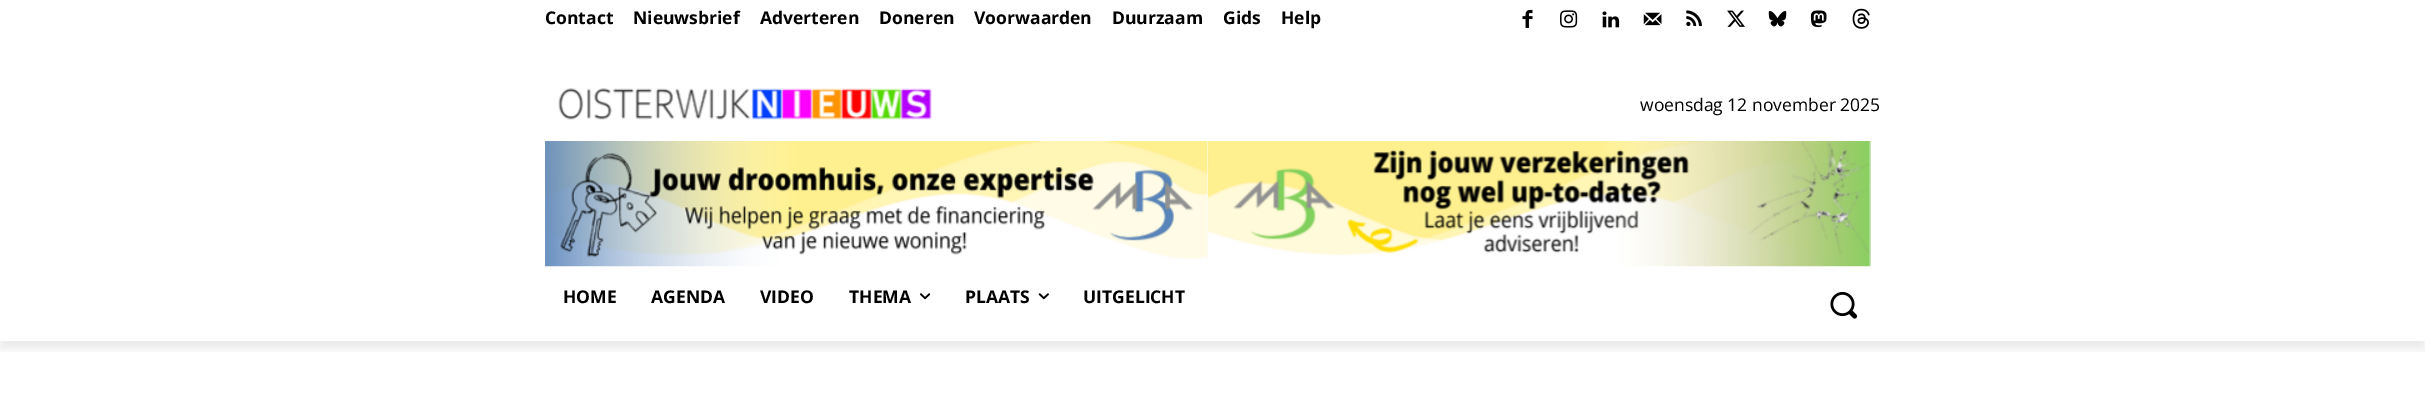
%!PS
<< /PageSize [2425 395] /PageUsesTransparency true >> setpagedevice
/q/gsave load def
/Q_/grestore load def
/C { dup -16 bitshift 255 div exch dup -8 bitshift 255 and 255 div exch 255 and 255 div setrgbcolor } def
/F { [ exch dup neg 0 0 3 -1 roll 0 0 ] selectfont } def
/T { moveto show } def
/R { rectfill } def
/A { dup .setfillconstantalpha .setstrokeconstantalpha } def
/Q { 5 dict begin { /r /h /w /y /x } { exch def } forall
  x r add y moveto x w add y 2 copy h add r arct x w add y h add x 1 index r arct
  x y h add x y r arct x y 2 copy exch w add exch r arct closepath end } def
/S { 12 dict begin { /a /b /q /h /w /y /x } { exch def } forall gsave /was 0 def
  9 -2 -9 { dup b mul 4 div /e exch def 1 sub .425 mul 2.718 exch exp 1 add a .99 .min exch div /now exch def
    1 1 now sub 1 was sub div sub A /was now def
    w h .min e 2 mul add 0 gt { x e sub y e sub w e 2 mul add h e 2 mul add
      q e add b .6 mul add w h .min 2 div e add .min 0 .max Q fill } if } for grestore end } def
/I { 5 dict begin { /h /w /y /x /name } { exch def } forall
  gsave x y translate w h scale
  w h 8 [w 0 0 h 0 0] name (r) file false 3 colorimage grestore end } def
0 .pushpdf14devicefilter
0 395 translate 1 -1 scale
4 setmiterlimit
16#FFFFFF C
0 0 2425 395 R
(1.rgb) 1522 9 11 19 I
(2.rgb) 1560 10 18 18 I
(3.rgb) 1602 11 18 17 I
(4.rgb) 1643 12 19 14 I
(5.rgb) 1686 10 16 17 I
(6.rgb) 1727 10 18 17 I
(7.rgb) 1768 11 19 16 I
(8.rgb) 1810 10 17 18 I
(9.rgb) 1852 8 18 21 I
(10.rgb) 558 88 374 32 I
(11.rgb) 545 141 663 126 I
(12.rgb) 1208 141 663 126 I
q
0 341 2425 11 rectclip
16#000000 C
0 8 2425 341 0 5 .08 S
Q_
/OpenSans-Bold 17.5 F
16#000000 C
(Contact) 545 24 T
(Nieuwsbrief) 633 24 T
(Adverteren) 760 24 T
(Doneren) 879 24 T
(Voorwaarden) 974 24 T
(Duurzaam) 1112 24 T
(Gids) 1223 24 T
(Help) 1281 24 T
/OpenSans-Regular 17.5 F
(woensdag 12 november 2025) 1640 111 T
/OpenSans-Bold 17.5 F
(HOME) 563 303 T
(AGENDA) 651 303 T
(VIDEO) 760 303 T
(THEMA) 849 303 T
(13.rgb) 920 293 11 7 I
(PLAATS) 965 303 T
(14.rgb) 1038 293 11 7 I
(UITGELICHT) 1083 303 T
(15.rgb) 1830 291 28 28 I
.poppdf14devicefilter showpage
